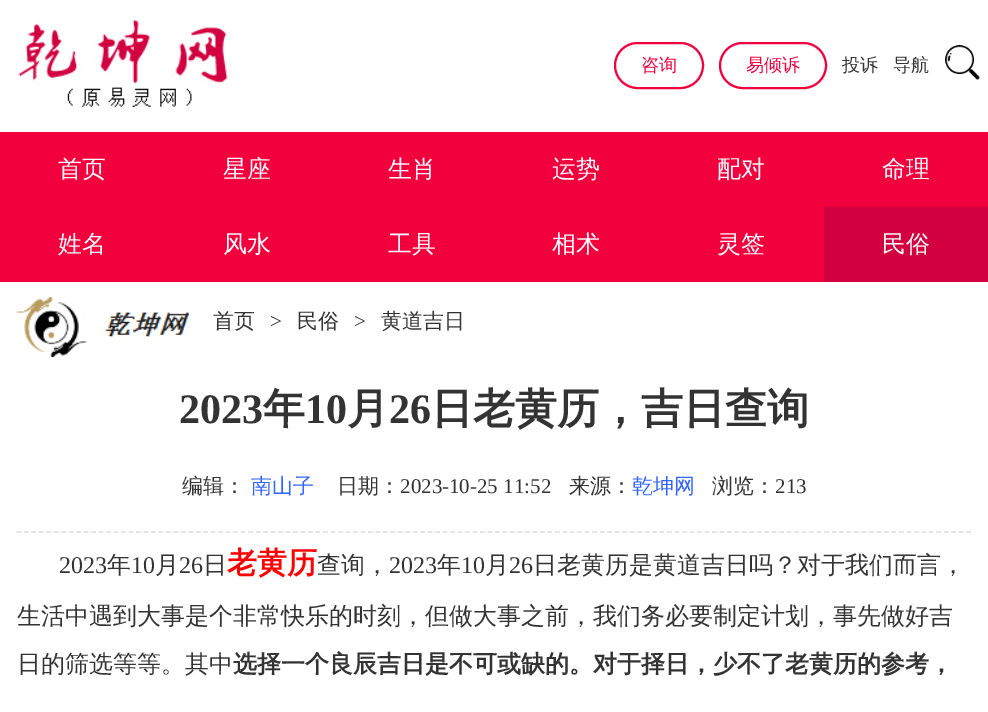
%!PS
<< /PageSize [988 712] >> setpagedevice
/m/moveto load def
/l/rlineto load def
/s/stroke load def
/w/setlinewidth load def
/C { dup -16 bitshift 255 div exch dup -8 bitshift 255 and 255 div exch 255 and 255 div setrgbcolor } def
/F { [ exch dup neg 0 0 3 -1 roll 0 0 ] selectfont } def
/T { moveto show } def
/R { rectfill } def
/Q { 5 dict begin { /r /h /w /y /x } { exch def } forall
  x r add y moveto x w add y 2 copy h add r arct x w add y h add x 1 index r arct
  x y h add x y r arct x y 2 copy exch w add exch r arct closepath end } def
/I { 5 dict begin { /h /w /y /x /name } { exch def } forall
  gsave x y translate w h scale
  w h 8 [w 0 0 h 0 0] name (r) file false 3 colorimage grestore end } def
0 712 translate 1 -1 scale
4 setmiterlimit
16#FFFFFF C
0 0 988 712 R
(1.rgb) 18 20 210 87 I
16#F0003D C
2 w
615 43 88 45 22.5 Q s
/WenQuanYiZenHei-Medium 18 F
(咨询) 641 71 T
720 43 106 45 22.5 Q s
(易倾诉) 746 71 T
16#333333 C
(投诉) 842 71 T
(导航) 893 71 T
(2.rgb) 945 45 35 35 I
16#F2003D C
0 132 988 150 R
/WenQuanYiZenHei-Medium 24 F
16#FFFFFF C
(首页) 58 177 T
(星座) 223 177 T
(生肖) 388 177 T
(运势) 552 177 T
(配对) 717 177 T
(命理) 882 177 T
(姓名) 58 252 T
(风水) 223 252 T
(工具) 388 252 T
(相术) 552 252 T
(灵签) 717 252 T
16#D20041 C
824 207 164 75 R
16#FFFFFF C
(民俗) 882 252 T
(3.rgb) 16 297 173 60 I
/WenQuanYiZenHei-Medium 21 F
16#333333 C
(首页) 213 328 T
/LiberationSerif-Regular 21 F
(>) 270 328 T
/WenQuanYiZenHei-Medium 21 F
(民俗) 297 328 T
/LiberationSerif-Regular 21 F
(>) 354 328 T
/WenQuanYiZenHei-Medium 21 F
(黄道吉日) 381 328 T
/LiberationSerif-Bold 42 F
(2023) 179 423 T
/WenQuanYiZenHei-Bold 42 F
(年) 263 423 T
/LiberationSerif-Bold 42 F
(10) 305 423 T
/WenQuanYiZenHei-Bold 42 F
(月) 347 423 T
/LiberationSerif-Bold 42 F
(26) 389 423 T
/WenQuanYiZenHei-Bold 42 F
(日老黄历，吉日查询) 431 423 T
16#E1E1E1 C
1.5 w
[4.5 2.98] 0 setdash
16.5 532 m 955.5 0 l s
/WenQuanYiZenHei-Medium 21 F
16#333333 C
(编辑：) 182 493 T
16#3366FF C
(南山子) 251 493 T
16#333333 C
(日期：) 337 493 T
/LiberationSerif-Regular 21 F
(2023-10-25 11:52) 400 493 T
/WenQuanYiZenHei-Medium 21 F
(来源：) 569 493 T
16#3366FF C
(乾坤网) 632 493 T
16#333333 C
(浏览：) 712 493 T
/LiberationSerif-Regular 21 F
(213) 775 493 T
/LiberationSerif-Regular 24 F
(2023) 59 573 T
/WenQuanYiZenHei-Medium 24 F
(年) 107 573 T
/LiberationSerif-Regular 24 F
(10) 131 573 T
/WenQuanYiZenHei-Medium 24 F
(月) 155 573 T
/LiberationSerif-Regular 24 F
(26) 179 573 T
/WenQuanYiZenHei-Medium 24 F
(日) 203 573 T
/WenQuanYiZenHei-Bold 30 F
16#FF0000 C
(老黄历) 227 573 T
/WenQuanYiZenHei-Medium 24 F
16#333333 C
(查询，) 317 573 T
/LiberationSerif-Regular 24 F
(2023) 389 573 T
/WenQuanYiZenHei-Medium 24 F
(年) 437 573 T
/LiberationSerif-Regular 24 F
(10) 461 573 T
/WenQuanYiZenHei-Medium 24 F
(月) 485 573 T
/LiberationSerif-Regular 24 F
(26) 509 573 T
/WenQuanYiZenHei-Medium 24 F
(日老黄历是黄道吉日吗？对于我们而言，) 533 573 T
(生活中遇到大事是个非常快乐的时刻，但做大事之前，我们务必要制定计划，事先做好吉) 17 624 T
(日的筛选等等。其中) 17 672 T
/WenQuanYiZenHei-Bold 24 F
(选择一个良辰吉日是不可或缺的。对于择日，少不了老黄历的参考，) 233 672 T
showpage
